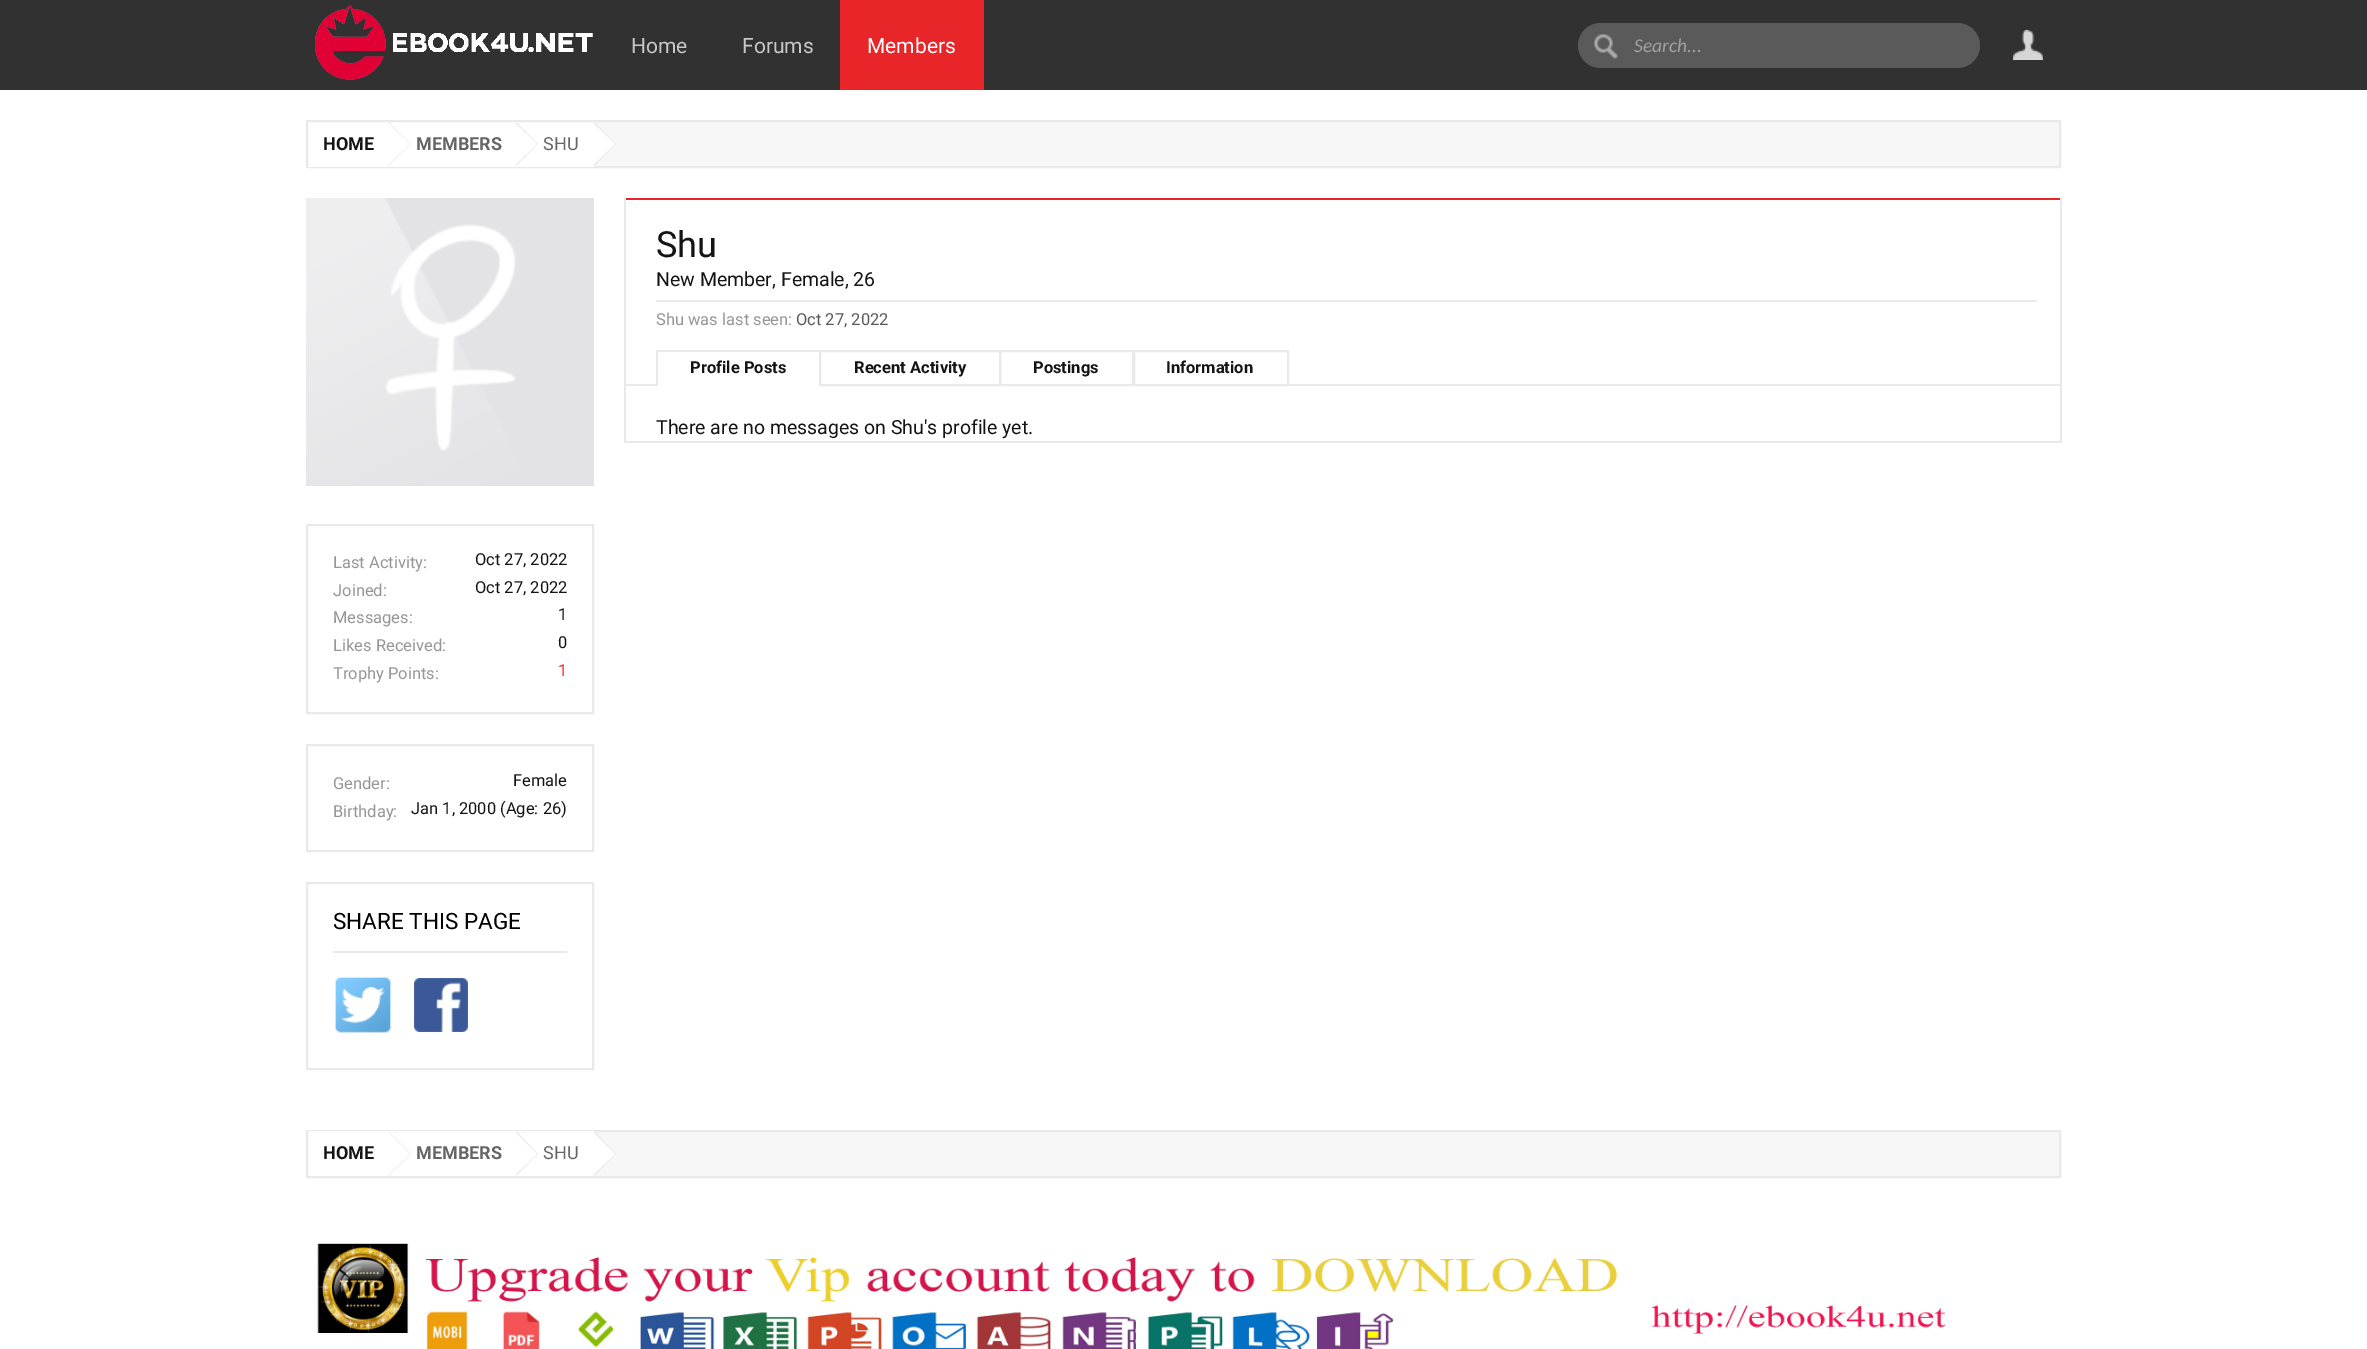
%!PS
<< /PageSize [2367 1349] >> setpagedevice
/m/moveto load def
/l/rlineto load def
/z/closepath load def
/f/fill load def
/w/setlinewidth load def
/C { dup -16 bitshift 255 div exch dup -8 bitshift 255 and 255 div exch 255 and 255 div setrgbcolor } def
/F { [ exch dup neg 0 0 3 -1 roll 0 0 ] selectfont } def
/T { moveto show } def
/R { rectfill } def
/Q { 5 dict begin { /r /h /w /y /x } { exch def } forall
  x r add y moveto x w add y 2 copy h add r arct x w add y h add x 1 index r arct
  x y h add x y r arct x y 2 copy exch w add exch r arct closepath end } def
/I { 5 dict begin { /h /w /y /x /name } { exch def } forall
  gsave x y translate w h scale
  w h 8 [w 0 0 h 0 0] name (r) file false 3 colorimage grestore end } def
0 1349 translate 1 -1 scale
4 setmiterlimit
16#FFFFFF C
0 0 2367 1349 R
16#313131 C
0 0 2367 90 R
(1.rgb) 315 5 278 75 I
/Roboto-Regular 21 F
16#C8C8C8 C
(Home) 631 53 T
(Forums) 742 53 T
16#E82528 C
840 0 144 90 R
16#FFFFFF C
(Members) 867 53 T
16#5A5A5A C
1578 23 402 45 22.5 Q f
(2.rgb) 1594 34 25 25 I
/Carlito-Italic 19.5 F
16#A0A0A0 C
(Search...) 1634 52 T
(3.rgb) 2013 30 30 30 I
16#F7F7F7 C
594 122 1465 44 R
16#E9E9E9 C
2 w
307 121 1753 46 rectstroke
16#FFFFFF C
308 166 286 1 R
/Roboto-Bold 18 F
16#141414 C
(HOME) 323 150 T
16#E9E9E9 C
388 166 m 0 -44 l 23 22 l z f
16#FFFFFF C
387 166 m 0 -44 l 23 22 l z f
16#656565 C
(MEMBERS) 416 150 T
16#E9E9E9 C
516 166 m 0 -44 l 22 22 l z f
16#FFFFFF C
514 166 m 0 -44 l 23 22 l z f
/Roboto-Regular 18 F
16#656565 C
(SHU) 543 150 T
16#E9E9E9 C
594 166 m 0 -44 l 22 22 l z f
16#FFFFFF C
592 166 m 0 -44 l 23 22 l z f
16#E9E9E9 C
2060 198 2 245 R
624 441 1437 2 R
624 198 2 245 R
16#E82528 C
626 198 1434 2 R
/Roboto-Regular 36 F
16#141414 C
(Shu) 656 257 T
/Roboto-Regular 19.5 F
(New Member, Female, 26) 656 286 T
16#E9E9E9 C
656 300 1381 2 R
/Roboto-Regular 16.5 F
16#969696 C
(Shu was last seen:) 656 325 T
16#5A5A5A C
(Oct 27, 2022) 796 325 T
16#E9E9E9 C
626 384 1434 2 R
16#FFFFFF C
658 384 161 2 R
16#E9E9E9 C
656 350 165 2 R
656 350 2 36 R
/Roboto-Bold 16.5 F
16#141414 C
(Profile Posts) 690 373 T
16#E9E9E9 C
820 351 180 34 rectstroke
16#141414 C
(Recent Activity) 854 373 T
16#E9E9E9 C
1000 351 133 34 rectstroke
16#141414 C
(Postings) 1033 373 T
16#E9E9E9 C
1134 351 154 34 rectstroke
16#141414 C
(Information) 1166 373 T
/Roboto-Regular 19.5 F
(There are no messages on Shu's profile yet.) 656 434 T
(4.rgb) 306 198 288 288 I
16#E9E9E9 C
307 525 286 188 rectstroke
/Roboto-Regular 16.5 F
16#969696 C
(Last Activity:) 333 568 T
16#141414 C
(Oct 27, 2022) 475 565 T
16#969696 C
(Joined:) 333 596 T
16#141414 C
(Oct 27, 2022) 475 593 T
16#969696 C
(Messages:) 333 623 T
16#141414 C
(1) 558 620 T
16#969696 C
(Likes Received:) 333 651 T
16#141414 C
(0) 558 648 T
16#969696 C
(Trophy Points:) 333 679 T
16#E82528 C
(1) 558 676 T
16#E9E9E9 C
307 745 286 106 rectstroke
16#969696 C
(Gender:) 333 789 T
16#141414 C
(Female) 513 786 T
16#969696 C
(Birthday:) 333 817 T
16#141414 C
(Jan 1, 2000 \(Age: 26\)) 411 814 T
16#E9E9E9 C
307 883 286 186 rectstroke
333 951 234 2 R
/Roboto-Regular 22.5 F
16#000000 C
(SHARE THIS PAGE) 333 929 T
(5.rgb) 335 977 56 56 I
(6.rgb) 414 978 54 54 I
16#F7F7F7 C
594 1132 1465 44 R
16#E9E9E9 C
307 1131 1753 46 rectstroke
16#FFFFFF C
308 1131 286 1 R
/Roboto-Bold 18 F
16#141414 C
(HOME) 323 1159 T
16#E9E9E9 C
388 1176 m 0 -45 l 23 23 l z f
16#FFFFFF C
387 1176 m 0 -45 l 23 23 l z f
16#656565 C
(MEMBERS) 416 1159 T
16#E9E9E9 C
516 1176 m 0 -45 l 22 23 l z f
16#FFFFFF C
514 1176 m 0 -45 l 23 23 l z f
/Roboto-Regular 18 F
16#656565 C
(SHU) 543 1159 T
16#E9E9E9 C
594 1176 m 0 -45 l 22 23 l z f
16#FFFFFF C
592 1176 m 0 -45 l 23 23 l z f
(7.rgb) 317 1243 1629 106 I
showpage
